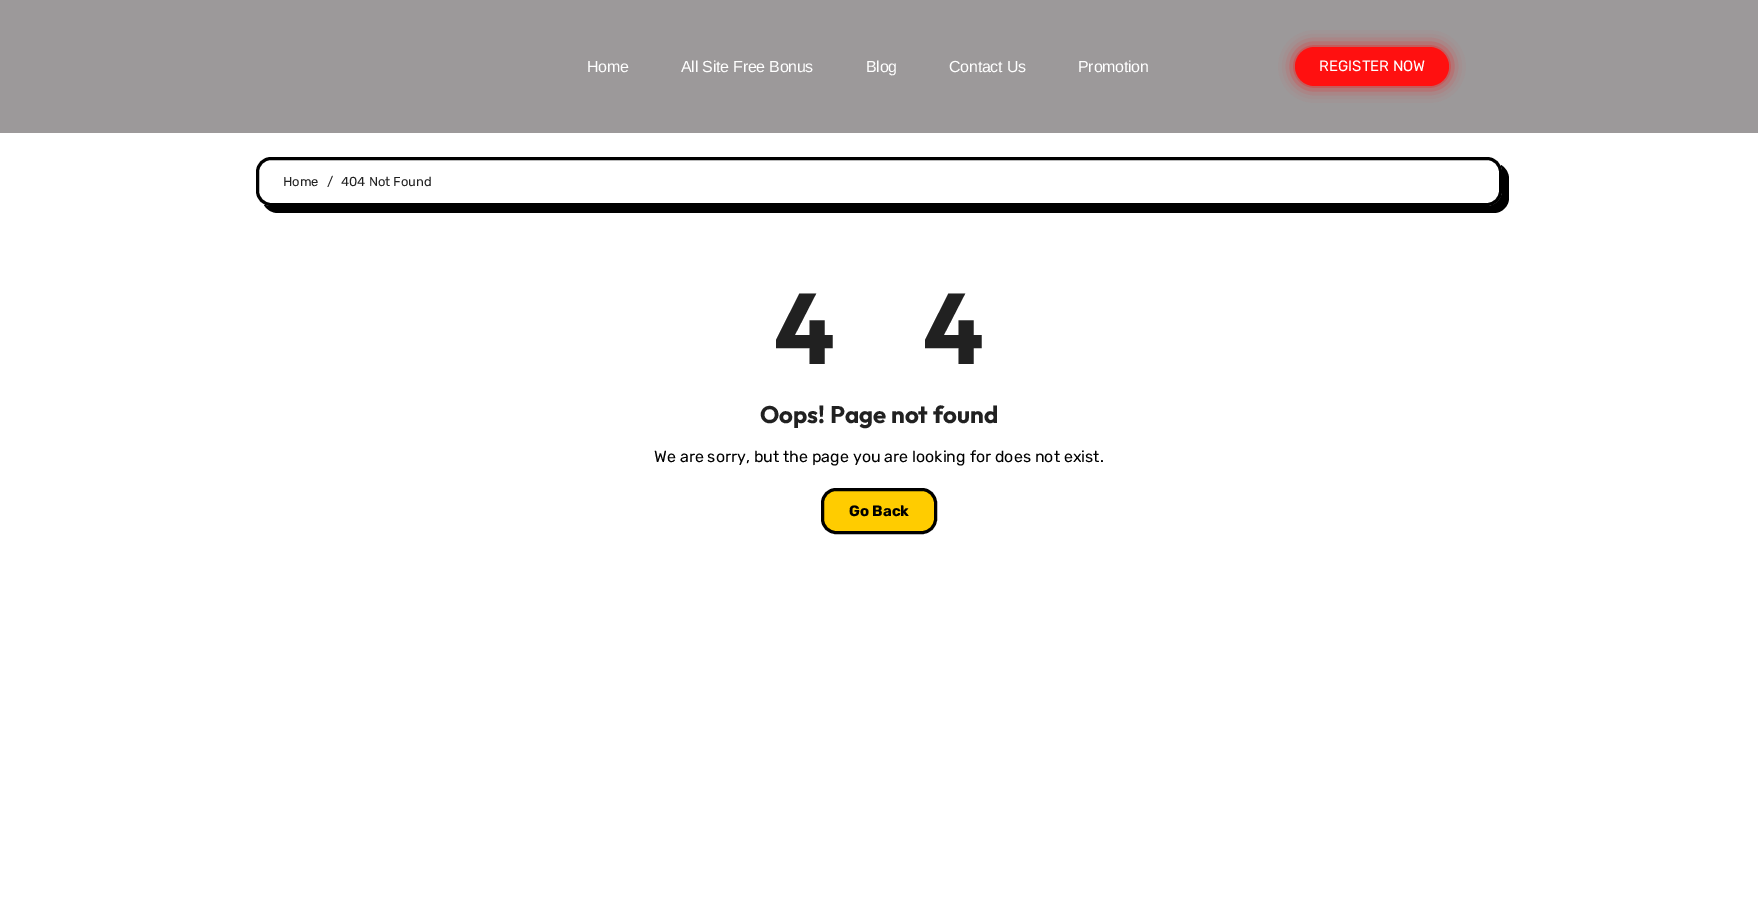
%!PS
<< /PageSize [1758 903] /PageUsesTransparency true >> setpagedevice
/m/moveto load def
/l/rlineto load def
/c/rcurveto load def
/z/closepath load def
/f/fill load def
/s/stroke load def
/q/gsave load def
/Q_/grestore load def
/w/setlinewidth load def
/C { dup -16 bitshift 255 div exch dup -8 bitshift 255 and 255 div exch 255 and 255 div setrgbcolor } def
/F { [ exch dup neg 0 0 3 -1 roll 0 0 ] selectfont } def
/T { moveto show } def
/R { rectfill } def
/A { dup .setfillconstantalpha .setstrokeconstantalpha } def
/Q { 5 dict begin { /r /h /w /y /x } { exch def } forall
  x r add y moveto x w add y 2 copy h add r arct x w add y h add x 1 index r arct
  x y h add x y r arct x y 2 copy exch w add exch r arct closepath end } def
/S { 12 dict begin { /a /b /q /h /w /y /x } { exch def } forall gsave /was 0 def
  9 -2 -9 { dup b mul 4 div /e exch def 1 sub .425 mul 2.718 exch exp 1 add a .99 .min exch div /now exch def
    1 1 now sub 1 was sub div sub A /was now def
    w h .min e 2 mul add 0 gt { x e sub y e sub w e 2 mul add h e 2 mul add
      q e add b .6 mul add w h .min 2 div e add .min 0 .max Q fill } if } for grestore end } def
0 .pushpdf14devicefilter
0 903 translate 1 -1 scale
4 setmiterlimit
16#FFFFFF C
0 0 1758 903 R
16#9C999A C
0 0 1758 133 R
/LiberationSans-Regular 16 F
16#FFFFFF C
587 72 m -.25 0 (Home) ashow
681 72 m -.25 0 (All Site Free Bonus) ashow
866 72 m -.25 0 (Blog) ashow
949 72 m -.25 0 (Contact Us) ashow
1078 72 m -.25 0 (Promotion) ashow
16#FF0000 C
1295 47 154 39 19.5 7.5 .8 S
16#FF1010 C
1295 47 154 39 19.5 Q f
/Rubik-Light 15 F
16#FFFFFF C
(REGISTER NOW) 1319 71 T
16#000000 C
264 205 m 3 5 8 8 14 8 c 1216 0 l 8 0 15 -7 15 -15 c 0 -19 l 0 -6 -3 -11 -8 -14 c 0 2 1 5 1 7 c 0 19 l 0 8 -7 15 -15 15 c -1216 0 l -2 0 -5 -1 -7 -1 c z f
16#FFFFFF C
257.5 158.5 1243 46 13.5 Q q f Q_
16#000000 C
3 w
s
/Rubik-Light 13 F
16#212121 C
(Home) 283 186 T
(/) 327 186 T
(404 Not Found) 341 186 T
/Outfit-Bold 100 F
(4) 774 364 T
(4) 923 364 T
/Outfit-Bold 24 F
(Oops! Page not found) 760 423 T
/Rubik-Light 16 F
16#000000 C
(We are sorry, but the page you are looking for does not exist.) 654 462 T
16#FFCC00 C
822.5 489.5 113 43 13.5 Q q f Q_
16#000000 C
s
/Rubik-Bold 15 F
(Go Back) 849 516 T
.poppdf14devicefilter showpage
